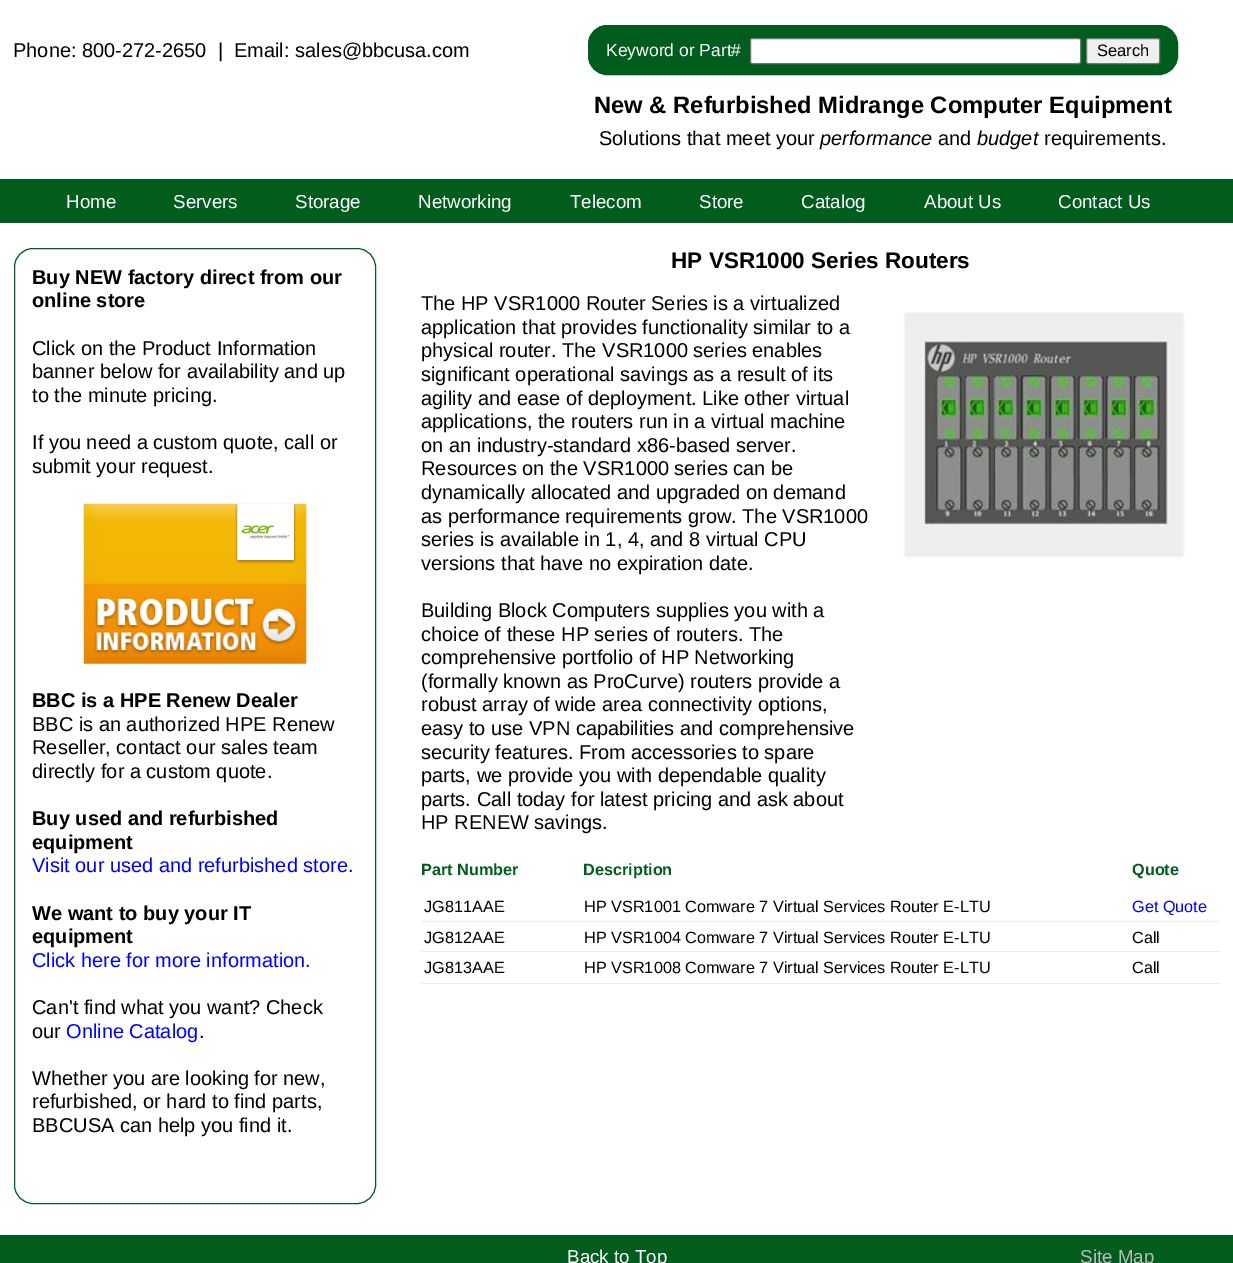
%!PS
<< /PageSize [1233 1263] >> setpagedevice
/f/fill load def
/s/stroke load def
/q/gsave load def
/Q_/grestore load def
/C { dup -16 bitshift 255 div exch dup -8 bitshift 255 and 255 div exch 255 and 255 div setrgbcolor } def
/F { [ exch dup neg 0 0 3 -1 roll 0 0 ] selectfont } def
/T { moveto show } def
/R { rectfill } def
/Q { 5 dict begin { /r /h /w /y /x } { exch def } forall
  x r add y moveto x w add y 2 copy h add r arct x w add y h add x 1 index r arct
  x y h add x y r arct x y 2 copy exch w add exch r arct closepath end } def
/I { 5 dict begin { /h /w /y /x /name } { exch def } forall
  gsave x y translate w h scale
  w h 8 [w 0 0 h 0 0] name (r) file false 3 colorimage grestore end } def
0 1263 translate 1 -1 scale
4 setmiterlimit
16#FFFFFF C
0 0 1233 1263 R
/LiberationSans-Regular 20 F
16#000000 C
(Phone: 800-272-2650  |  Email: sales@bbcusa.com) 13 57 T
16#015D1E C
588.5 25.5 589 49 18.5 Q q f Q_
s
/LiberationSans-Regular 17.5 F
16#FFFFFF C
(Keyword or Part#) 606 56 T
750.5 38.5 330 25 2 Q q f Q_
16#767676 C
s
16#EFEFEF C
1086.5 38.5 73 25 2 Q q f Q_
16#767676 C
s
/LiberationSans-Regular 16.5 F
16#000000 C
(Search) 1097 56 T
/LiberationSans-Bold 23.75 F
(New & Refurbished Midrange Computer Equipment) 594 113 T
/LiberationSans-Regular 20 F
(Solutions that meet your) 599 145 T
/LiberationSans-Italic 20 F
(performance) 820 145 T
/LiberationSans-Regular 20 F
(and) 938 145 T
/LiberationSans-Italic 20 F
(budget) 977 145 T
/LiberationSans-Regular 20 F
(requirements.) 1044 145 T
16#015D1E C
0 179 1233 44 R
/LiberationSans-Regular 18.75 F
16#FFFFFF C
(Home) 66 208 T
(Servers) 173 208 T
(Storage) 295 208 T
(Networking) 418 208 T
(Telecom) 570 208 T
(Store) 699 208 T
(Catalog) 801 208 T
(About Us) 924 208 T
(Contact Us) 1058 208 T
16#015D1E C
14.5 248.5 361 955 18.5 Q s
/LiberationSans-Bold 20 F
16#000000 C
(Buy NEW factory direct from our) 32 284 T
(online store) 32 307 T
/LiberationSans-Regular 20 F
(Click on the Product Information) 32 355 T
(banner below for availability and up) 32 378 T
(to the minute pricing.) 32 402 T
(If you need a custom quote, call or) 32 449 T
(submit your request.) 32 473 T
(1.rgb) 83 503 224 161 I
(2.rgb) 235 503 61 61 I
(3.rgb) 237 503 57 57 I
(4.rgb) 94 597 204 57 I
/LiberationSans-Bold 20 F
(BBC is a HPE Renew Dealer) 32 707 T
/LiberationSans-Regular 20 F
(BBC is an authorized HPE Renew) 32 731 T
(Reseller, contact our sales team) 32 754 T
(directly for a custom quote.) 32 778 T
/LiberationSans-Bold 20 F
(Buy used and refurbished) 32 825 T
(equipment) 32 849 T
/LiberationSans-Regular 20 F
16#0000FF C
(Visit our used and refurbished store.) 32 872 T
/LiberationSans-Bold 20 F
16#000000 C
(We want to buy your IT) 32 920 T
(equipment) 32 943 T
/LiberationSans-Regular 20 F
16#0000FF C
(Click here for more information.) 32 967 T
16#000000 C
(Can't find what you want? Check) 32 1014 T
(our) 32 1038 T
16#0000FF C
(Online Catalog) 66 1038 T
16#000000 C
(.) 199 1038 T
(Whether you are looking for new,) 32 1085 T
(refurbished, or hard to find parts,) 32 1108 T
(BBCUSA can help you find it.) 32 1132 T
/LiberationSans-Bold 22.5 F
(HP VSR1000 Series Routers) 671 268 T
/LiberationSans-Regular 20 F
(The HP VSR1000 Router Series is a virtualized) 421 310 T
(application that provides functionality similar to a) 421 334 T
(physical router. The VSR1000 series enables) 421 357 T
(significant operational savings as a result of its) 421 381 T
(agility and ease of deployment. Like other virtual) 421 405 T
(applications, the routers run in a virtual machine) 421 428 T
(on an industry-standard x86-based server.) 421 452 T
(Resources on the VSR1000 series can be) 421 475 T
(dynamically allocated and upgraded on demand) 421 499 T
(as performance requirements grow. The VSR1000) 421 523 T
(series is available in 1, 4, and 8 virtual CPU) 421 546 T
(versions that have no expiration date.) 421 570 T
(Building Block Computers supplies you with a) 421 617 T
(choice of these HP series of routers. The) 421 641 T
(comprehensive portfolio of HP Networking) 421 664 T
(\(formally known as ProCurve\) routers provide a) 421 688 T
(robust array of wide area connectivity options,) 421 711 T
(easy to use VPN capabilities and comprehensive) 421 735 T
(security features. From accessories to spare) 421 759 T
(parts, we provide you with dependable quality) 421 782 T
(parts. Call today for latest pricing and ask about) 421 806 T
(HP RENEW savings.) 421 829 T
(5.rgb) 903 312 282 246 I
/LiberationSans-Bold 16.25 F
16#015D1E C
(Part Number) 421 875 T
(Description) 583 875 T
(Quote) 1132 875 T
16#EBEBEB C
421 921 799 1 R
/LiberationSans-Regular 16.25 F
16#000000 C
(JG811AAE) 424 912 T
(HP VSR1001 Comware 7 Virtual Services Router E-LTU) 584 912 T
16#0000FF C
(Get Quote) 1132 912 T
16#EBEBEB C
421 951 799 1 R
16#000000 C
(JG812AAE) 424 943 T
(HP VSR1004 Comware 7 Virtual Services Router E-LTU) 584 943 T
(Call) 1132 943 T
16#EBEBEB C
421 983 799 1 R
16#000000 C
(JG813AAE) 424 973 T
(HP VSR1008 Comware 7 Virtual Services Router E-LTU) 584 973 T
(Call) 1132 973 T
16#015D1E C
0 1235 1233 28 R
/LiberationSans-Regular 18.75 F
16#FFFFFF C
(Back to Top) 567 1263 T
16#BABABA C
(Site Map) 1080 1263 T
showpage
